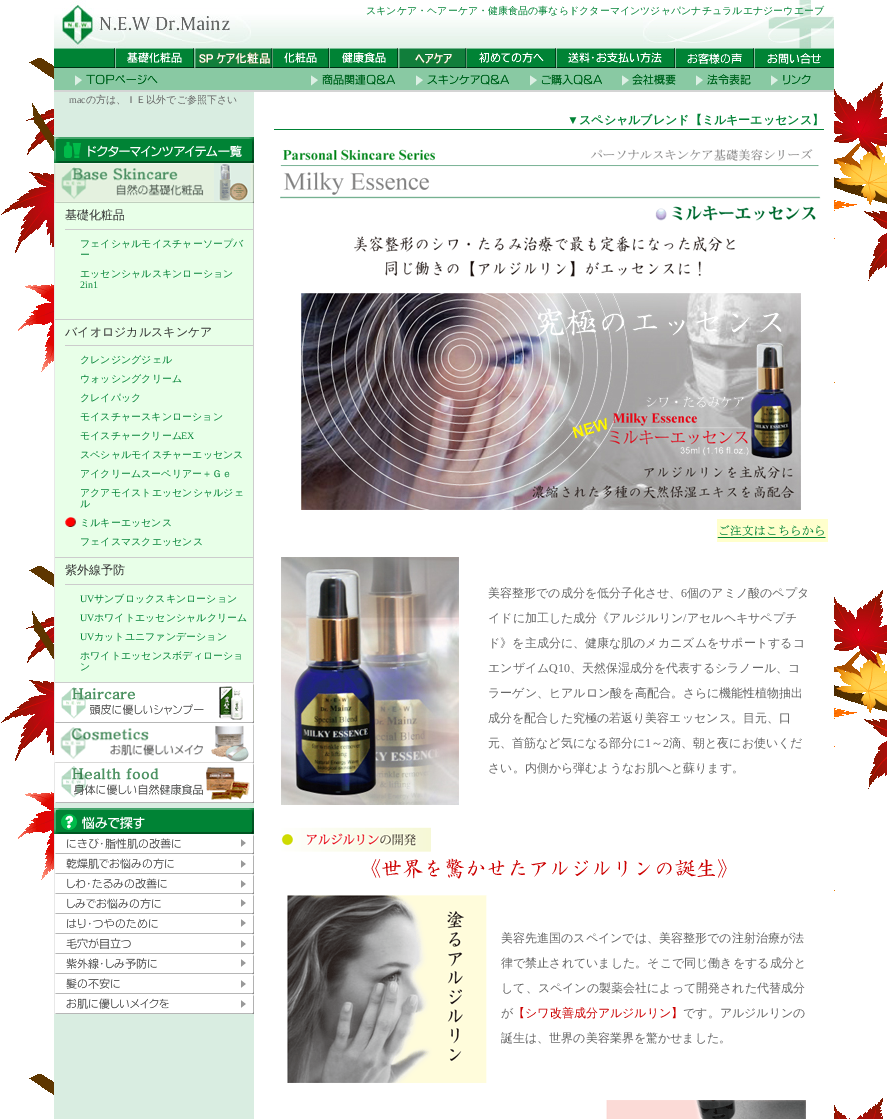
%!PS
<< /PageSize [887 1119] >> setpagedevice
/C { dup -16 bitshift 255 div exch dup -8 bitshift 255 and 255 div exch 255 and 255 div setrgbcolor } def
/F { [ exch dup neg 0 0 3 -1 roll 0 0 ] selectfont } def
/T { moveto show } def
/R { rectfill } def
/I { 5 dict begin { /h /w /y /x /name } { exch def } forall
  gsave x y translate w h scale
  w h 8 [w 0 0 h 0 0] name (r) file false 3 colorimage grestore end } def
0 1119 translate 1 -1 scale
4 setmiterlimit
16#FFFFFF C
0 0 887 1119 R
(1.rgb) 1 58 886 1061 I
254 92 580 1027 R
16#D9EDE1 C
54 92 200 1027 R
(2.rgb) 54 0 181 48 I
(3.rgb) 235 0 599 20 I
/WenQuanYiZenHei-Medium 10 F
16#008335 C
(スキンケア・ヘアーケア・健康食品の事ならドクターマインツジャパンナチュラルエナジーウエーブ) 366 14 T
(4.rgb) 235 20 414 28 I
(5.rgb) 649 20 155 28 I
(6.rgb) 804 20 30 28 I
(7.rgb) 54 48 62 20 I
(8.rgb) 116 48 79 20 I
(9.rgb) 195 48 78 20 I
(10.rgb) 273 48 57 20 I
(11.rgb) 330 48 69 20 I
(12.rgb) 399 48 68 20 I
(13.rgb) 467 48 90 20 I
(14.rgb) 557 48 119 20 I
(15.rgb) 676 48 79 20 I
(16.rgb) 755 48 79 20 I
(17.rgb) 54 68 129 24 I
(18.rgb) 75 74 83 12 I
(19.rgb) 183 68 651 24 I
(20.rgb) 311 74 84 12 I
(21.rgb) 416 74 93 12 I
(22.rgb) 530 74 72 12 I
(23.rgb) 622 74 54 12 I
(24.rgb) 696 74 55 12 I
(25.rgb) 771 74 40 12 I
/LiberationSerif-Regular 10 F
16#666666 C
(mac) 69 103 T
/WenQuanYiZenHei-Medium 10 F
(の方は、ＩＥ以外でご参照下さい) 86 103 T
(26.rgb) 54 137 200 26 I
(27.rgb) 54 163 200 40 I
16#E8FFE8 C
55 203 198 116 R
16#CCCCCC C
253 203 1 480 R
54 319 200 1 R
16#E8E8E8 C
54 203 1 117 R
16#CCCCCC C
65 229 188 1 R
/WenQuanYiZenHei-Medium 12 F
16#333333 C
(基礎化粧品) 65 219 T
/WenQuanYiZenHei-Medium 10 F
16#008335 C
(フェイシャルモイスチャーソープバ) 80 247 T
(ー) 80 258 T
(エッセンシャルスキンローション) 80 277 T
/LiberationSerif-Regular 10 F
(2in1) 80 288 T
16#E8FFE8 C
55 320 198 237 R
16#CCCCCC C
54 557 200 1 R
16#E8E8E8 C
54 320 1 238 R
16#CCCCCC C
65 345 188 1 R
/WenQuanYiZenHei-Medium 12 F
16#333333 C
(バイオロジカルスキンケア) 65 336 T
/WenQuanYiZenHei-Medium 10 F
16#008335 C
(クレンジングジェル) 80 363 T
(ウォッシングクリーム) 80 382 T
(クレイパック) 80 401 T
(モイスチャースキンローション) 80 420 T
(モイスチャークリーム) 80 439 T
/LiberationSerif-Regular 10 F
(EX) 181 439 T
/WenQuanYiZenHei-Medium 10 F
(スペシャルモイスチャーエッセンス) 80 458 T
(アイクリームスーペリアー＋Ｇｅ) 80 477 T
(アクアモイストエッセンシャルジェ) 80 496 T
(ル) 80 507 T
(28.rgb) 65 517 11 10 I
(ミルキーエッセンス) 80 526 T
(フェイスマスクエッセンス) 80 545 T
16#E8FFE8 C
55 558 198 124 R
16#CCCCCC C
54 682 200 1 R
16#E8E8E8 C
54 558 1 125 R
16#CCCCCC C
65 584 188 1 R
/WenQuanYiZenHei-Medium 12 F
16#333333 C
(紫外線予防) 65 574 T
/LiberationSerif-Regular 10 F
16#008335 C
(UV) 80 602 T
/WenQuanYiZenHei-Medium 10 F
(サンブロックスキンローション) 94 602 T
/LiberationSerif-Regular 10 F
(UV) 80 621 T
/WenQuanYiZenHei-Medium 10 F
(ホワイトエッセンシャルクリーム) 94 621 T
/LiberationSerif-Regular 10 F
(UV) 80 640 T
/WenQuanYiZenHei-Medium 10 F
(カットユニファンデーション) 94 640 T
(ホワイトエッセンスボディローショ) 80 659 T
(ン) 80 670 T
(29.rgb) 54 683 200 40 I
(30.rgb) 54 723 200 40 I
(31.rgb) 54 763 200 40 I
(32.rgb) 54 808 200 26 I
(33.rgb) 54 834 200 20 I
(34.rgb) 54 854 200 20 I
(35.rgb) 54 874 200 20 I
(36.rgb) 54 894 200 20 I
(37.rgb) 54 914 200 20 I
(38.rgb) 54 934 200 20 I
(39.rgb) 54 954 200 20 I
(40.rgb) 54 974 200 20 I
(41.rgb) 54 994 200 20 I
274 129 550 1 R
/LiberationSerif-Bold 12 F
(▼) 567 124 T
/WenQuanYiZenHei-Bold 12 F
(スペシャルブレンド【ミルキーエッセンス】) 579 124 T
(42.rgb) 280 149 541 72 I
(43.rgb) 354 236 381 41 I
(44.rgb) 301 293 500 217 I
(45.rgb) 717 519 111 23 I
(46.rgb) 281 557 178 248 I
/WenQuanYiZenHei-Medium 12 F
16#666666 C
(美容整形での成分を低分子化させ、) 488 597 T
/LiberationSerif-Regular 12 F
(6) 681 597 T
/WenQuanYiZenHei-Medium 12 F
(個のアミノ酸のペプタ) 687 597 T
(イドに加工した成分《アルジルリン アセルヘキサペプチ) 488 622 T
/LiberationSerif-Regular 12 F
(/) 683 622 T
/WenQuanYiZenHei-Medium 12 F
(ド》を主成分に、健康な肌のメカニズムをサポートするコ) 488 647 T
(エンザイム) 488 672 T
/LiberationSerif-Regular 12 F
(Q10) 549 672 T
/WenQuanYiZenHei-Medium 12 F
(、天然保湿成分を代表するシラノール、コ) 570 672 T
(ラーゲン、ヒアルロン酸を高配合。さらに機能性植物抽出) 488 697 T
(成分を配合した究極の若返り美容エッセンス。目元、口) 488 722 T
(元、首筋など気になる部分に) 488 747 T
/LiberationSerif-Regular 12 F
(1) 645 747 T
/WenQuanYiZenHei-Medium 12 F
(～) 651 747 T
/LiberationSerif-Regular 12 F
(2) 663 747 T
/WenQuanYiZenHei-Medium 12 F
(滴、朝と夜にお使いくだ) 669 747 T
(さい。内側から弾むようなお肌へと蘇ります。) 488 772 T
(47.rgb) 281 827 150 25 I
(48.rgb) 371 858 356 21 I
(49.rgb) 287 895 200 188 I
(美容先進国のスペインでは、美容整形での注射治療が法) 501 942 T
(律で禁止されていました。そこで同じ働きをする成分と) 501 967 T
(して、スペインの製薬会社によって開発された代替成分) 501 992 T
(が) 501 1017 T
16#CC0000 C
(【シワ改善成分アルジルリン】) 513 1017 T
16#666666 C
(です。アルジルリンの) 683 1017 T
(誕生は、世界の美容業界を驚かせました。) 501 1042 T
(50.rgb) 606 1100 200 19 I
showpage
